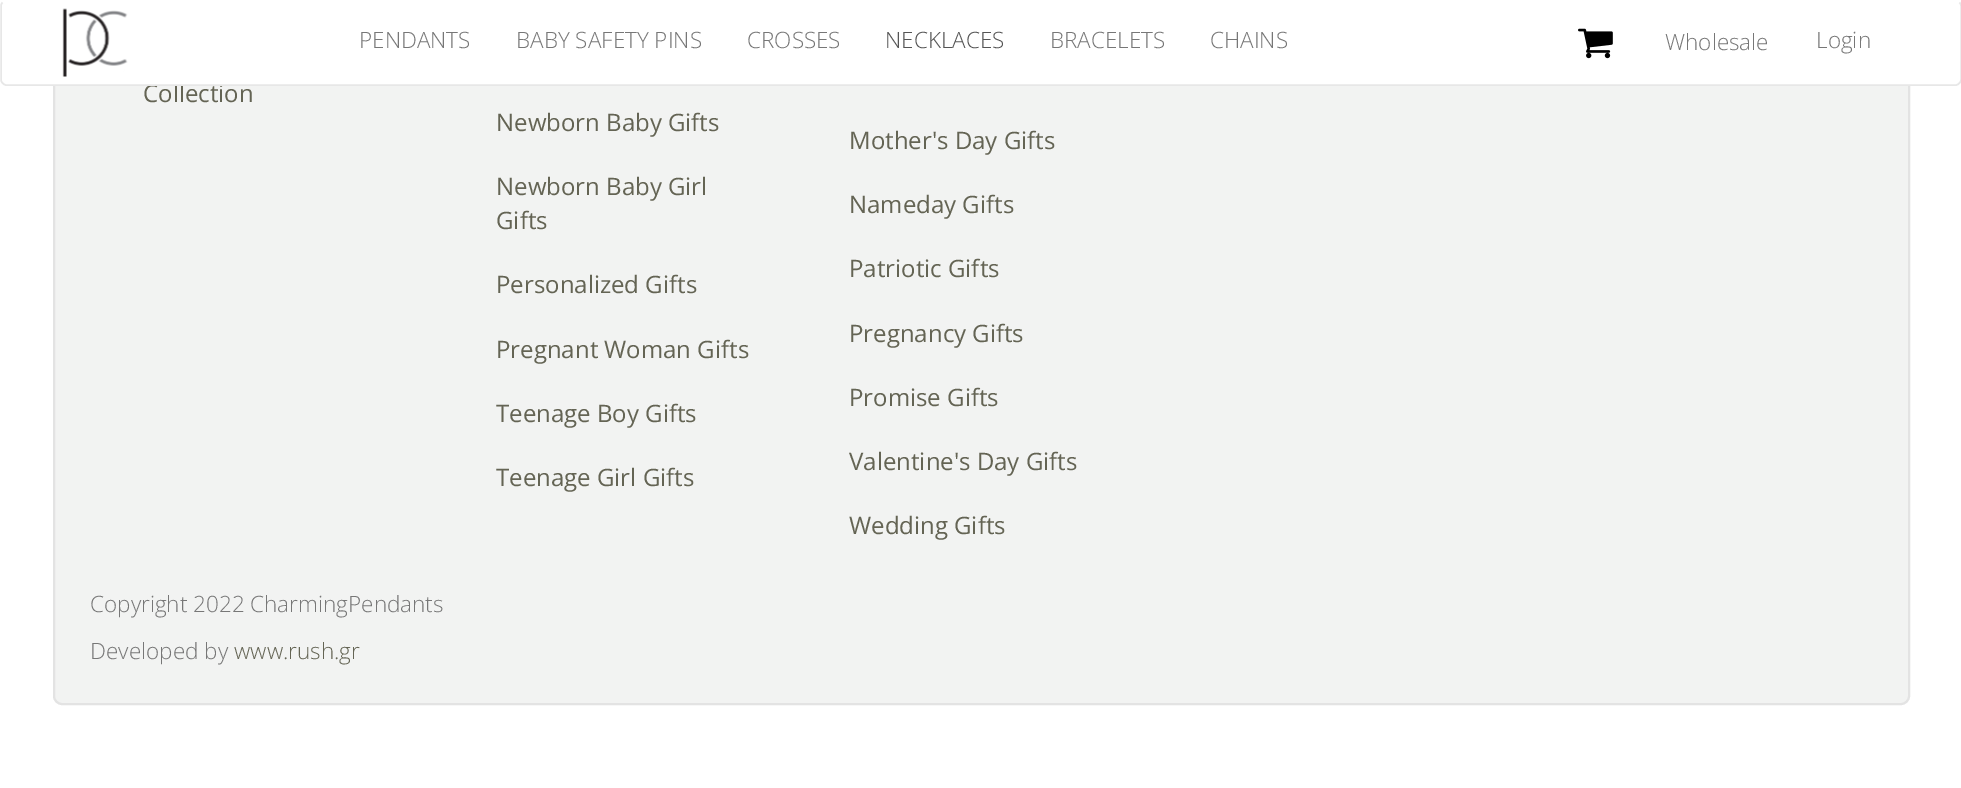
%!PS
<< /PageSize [1961 788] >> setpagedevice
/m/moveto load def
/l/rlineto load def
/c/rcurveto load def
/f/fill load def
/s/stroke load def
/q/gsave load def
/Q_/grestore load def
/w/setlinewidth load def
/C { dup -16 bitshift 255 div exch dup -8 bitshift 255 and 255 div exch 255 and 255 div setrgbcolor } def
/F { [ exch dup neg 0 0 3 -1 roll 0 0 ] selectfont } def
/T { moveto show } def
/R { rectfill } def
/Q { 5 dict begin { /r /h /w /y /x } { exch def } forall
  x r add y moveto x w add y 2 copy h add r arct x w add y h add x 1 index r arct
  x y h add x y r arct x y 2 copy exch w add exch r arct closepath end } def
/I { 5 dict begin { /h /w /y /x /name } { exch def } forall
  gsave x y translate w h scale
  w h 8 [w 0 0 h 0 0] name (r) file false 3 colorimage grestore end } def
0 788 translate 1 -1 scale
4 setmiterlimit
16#FFFFFF C
0 0 1961 788 R
16#F2F3F2 C
54 -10 1855 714 8 Q q f Q_
16#E3E3E3 C
2 w
s
/OpenSans-Regular 24 F
16#646454 C
(Collection) 143 102 T
16#FFFFFF C
0 0 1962 86 6 Q f
16#E7E7E7 C
1.5 w
1959.5 2.5 m 1 1 1.5 2 1.5 3.5 c 0 73.5 l 0 1.5 -.5 2.5 -1.5 3.5 c -1 1 -2 2 -3.5 2 c -1950 0 l -1.5 0 -2.5 -1 -3.5 -2 c -1 -1 -1.5 -2 -1.5 -3.5 c 0 -73.5 l 0 -1.5 .5 -2.5 1.5 -3.5 c s
(1.rgb) 62 8 66 69 I
/OpenSans-Light 22.5 F
16#777777 C
(PENDANTS) 359 48 T
(BABY SAFETY PINS) 516 48 T
(CROSSES) 747 48 T
16#555555 C
(NECKLACES) 885 48 T
16#777777 C
(BRACELETS) 1050 48 T
(CHAINS) 1210 48 T
(2.rgb) 1578 28 35 31 I
(Wholesale) 1665 50 T
(Login) 1816 48 T
/OpenSans-Regular 24 F
16#646454 C
(Newborn Baby Gifts) 496 131 T
(Newborn Baby Girl) 496 195 T
(Gifts) 496 229 T
(Personalized Gifts) 496 293 T
(Pregnant Woman Gifts) 496 358 T
(Teenage Boy Gifts) 496 422 T
(Teenage Girl Gifts) 496 486 T
(Mother's Day Gifts) 849 149 T
(Nameday Gifts) 849 213 T
(Patriotic Gifts) 849 277 T
(Pregnancy Gifts) 849 342 T
(Promise Gifts) 849 406 T
(Valentine's Day Gifts) 849 470 T
(Wedding Gifts) 849 534 T
/OpenSans-Light 22.5 F
16#777777 C
(Copyright 2022 CharmingPendants) 90 612 T
(Developed by) 90 659 T
16#646454 C
(www.rush.gr) 234 659 T
showpage
